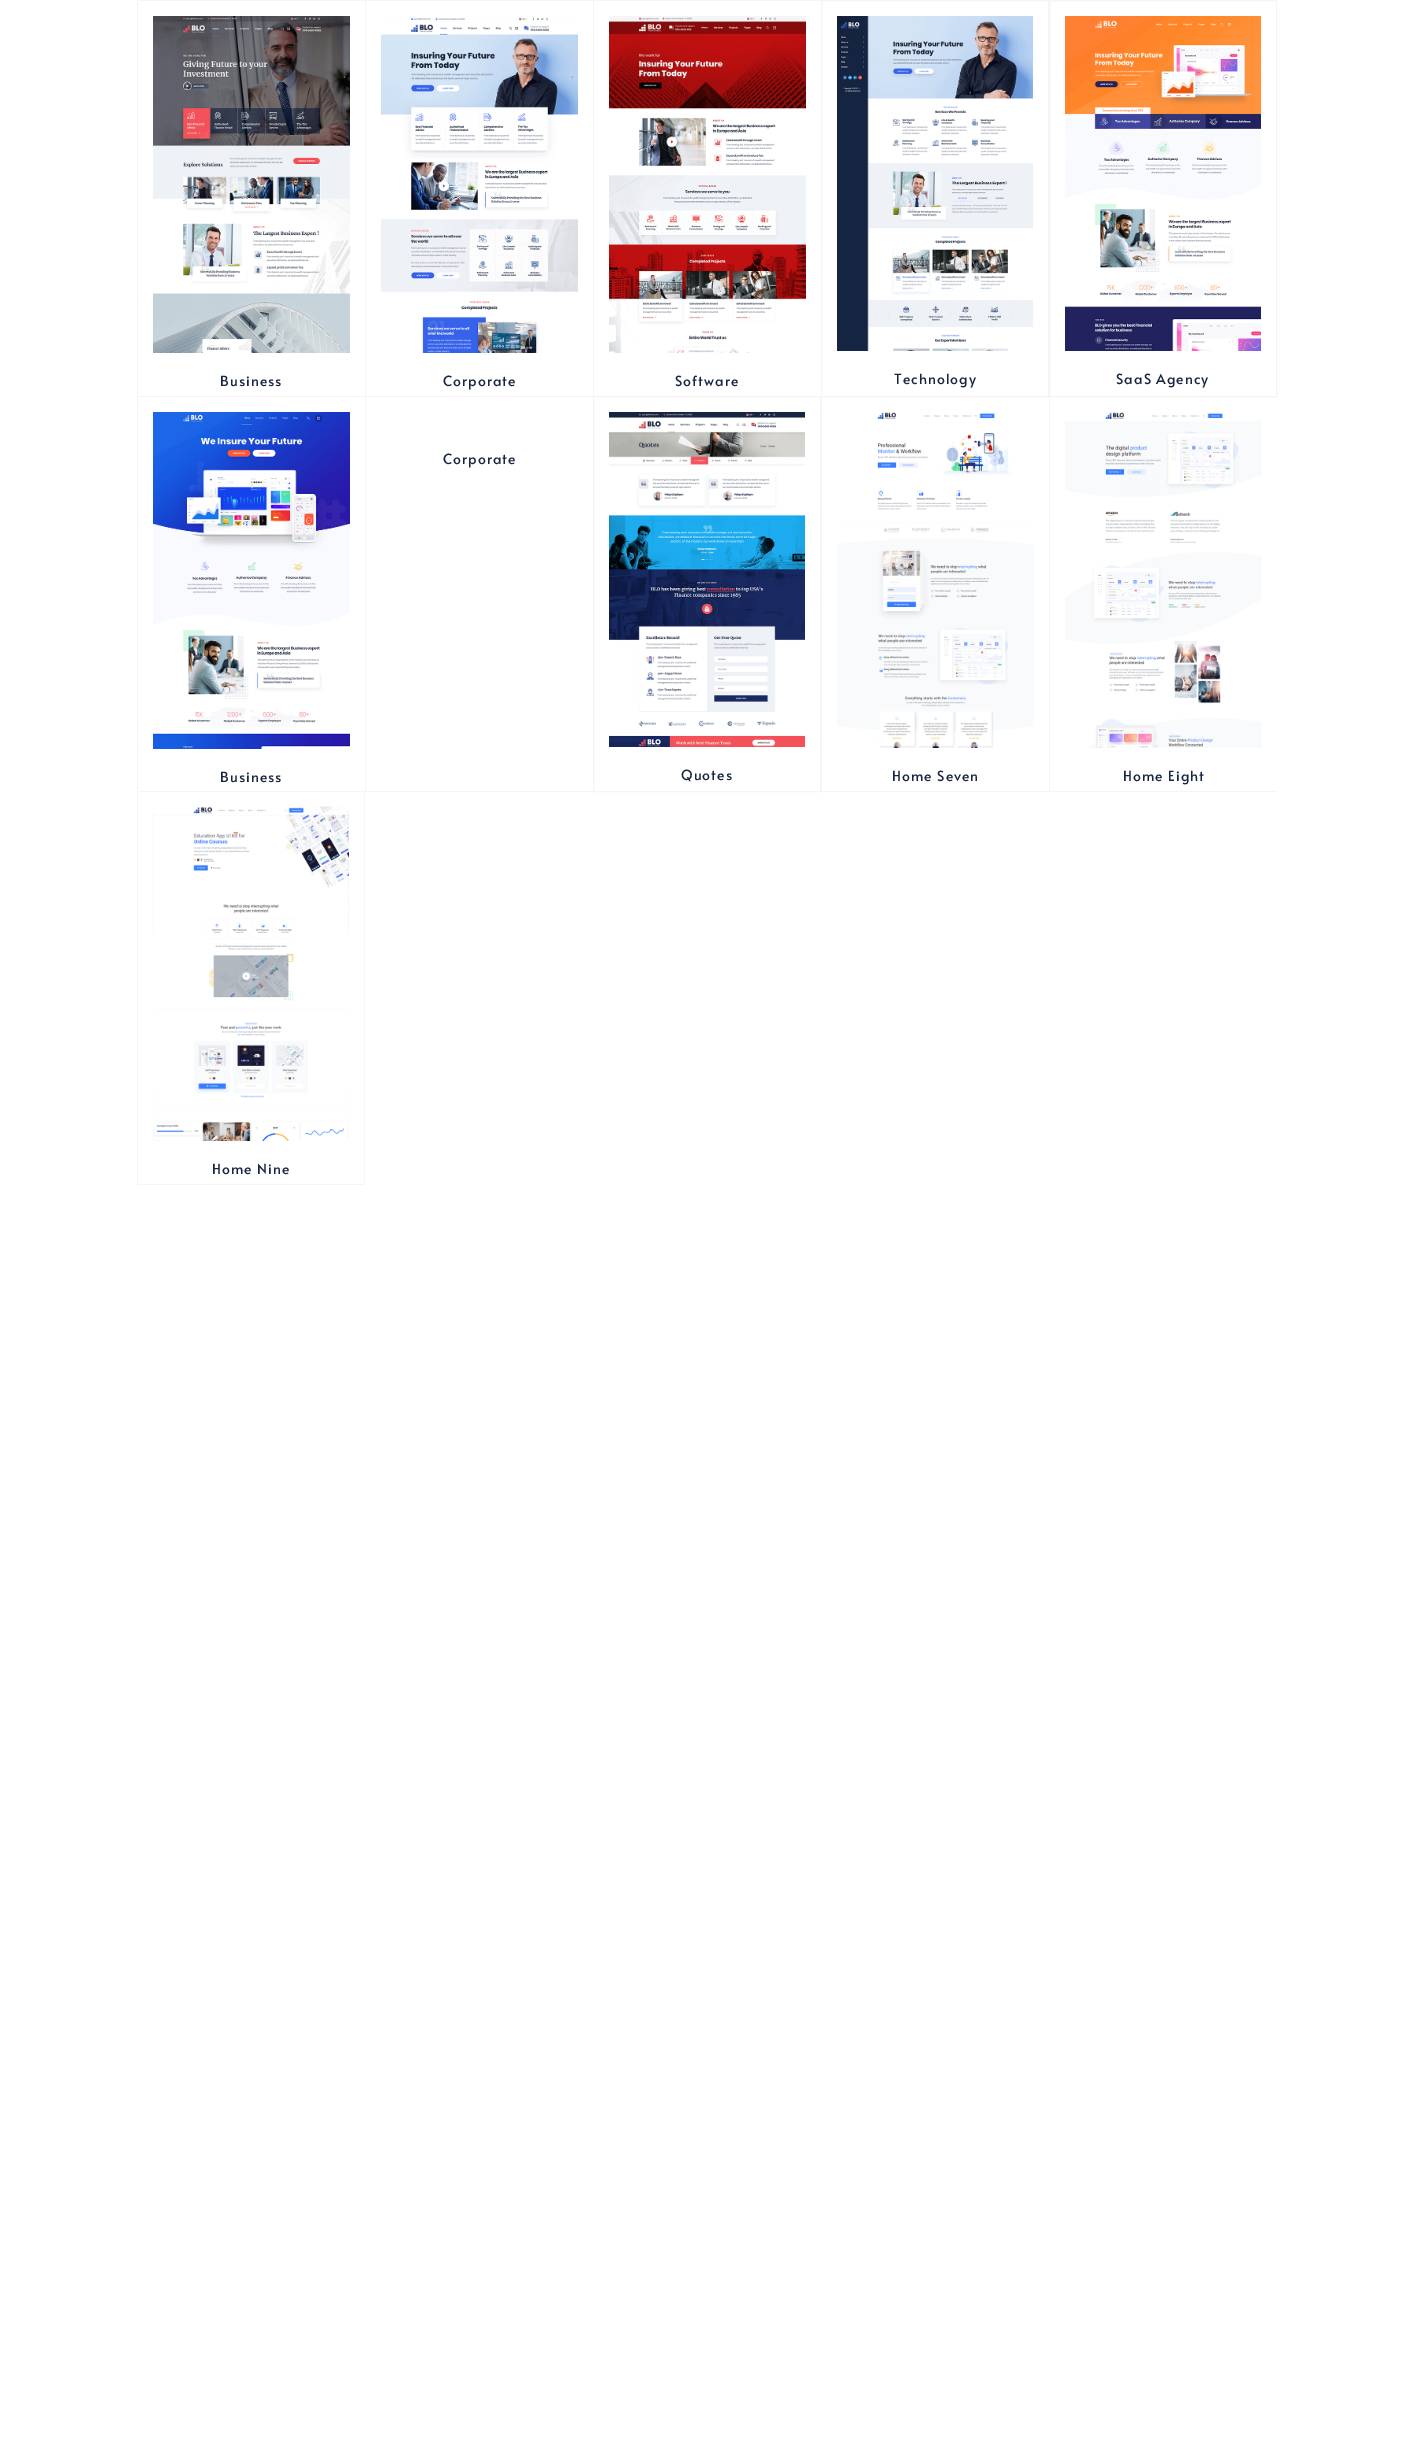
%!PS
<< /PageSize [1414 2464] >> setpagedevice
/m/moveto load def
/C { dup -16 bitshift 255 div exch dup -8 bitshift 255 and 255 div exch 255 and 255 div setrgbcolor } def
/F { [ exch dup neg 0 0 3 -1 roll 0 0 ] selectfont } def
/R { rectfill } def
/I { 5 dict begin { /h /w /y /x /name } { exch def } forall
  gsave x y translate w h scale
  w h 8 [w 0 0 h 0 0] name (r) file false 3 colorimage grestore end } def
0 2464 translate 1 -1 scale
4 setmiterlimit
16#FFFFFF C
0 0 1414 2464 R
16#F5F5F5 C
137 0 684 1 R
137 396 456 1 R
137 0 1 397 R
(1.rgb) 153 16 197 337 I
/Alata-Regular 14 F
16#172541 C
220 386 m 1 0 (Business) ashow
16#F5F5F5 C
365 0 1 397 R
(2.rgb) 381 17 197 336 I
16#172541 C
443 386 m 1 0 (Corporate) ashow
16#F5F5F5 C
593 0 1 397 R
(3.rgb) 609 16 197 337 I
16#172541 C
675 386 m 1 0 (Software) ashow
16#F5F5F5 C
821.5 .5 227 396 rectstroke
(4.rgb) 837 16 196 335 I
16#172541 C
894 384 m 1 0 (Technology) ashow
16#F5F5F5 C
1049.5 .5 227 396 rectstroke
(5.rgb) 1065 16 196 335 I
16#172541 C
1116 384 m 1 0 (SaaS Agency) ashow
16#F5F5F5 C
364 791 1 394 R
137 1184 228 1 R
137 791 1 394 R
137 791 456 1 R
365 396 1 396 R
16#172541 C
443 464 m 1 0 (Corporate) ashow
16#F5F5F5 C
137 396 1 396 R
(6.rgb) 153 412 197 337 I
16#172541 C
220 782 m 1 0 (Business) ashow
16#F5F5F5 C
593.5 396.5 227 395 rectstroke
(7.rgb) 609 412 196 335 I
16#172541 C
681 780 m 1 0 (Quotes) ashow
16#F5F5F5 C
821 791 456 1 R
821 396 1 396 R
(8.rgb) 837 412 197 336 I
16#172541 C
892 781 m 1 0 (Home Seven) ashow
16#F5F5F5 C
1049 396 1 396 R
(9.rgb) 1065 412 197 336 I
16#172541 C
1123 781 m 1 0 (Home Eight) ashow
(10.rgb) 153 806 196 335 I
212 1174 m 1 0 (Home Nine) ashow
showpage
